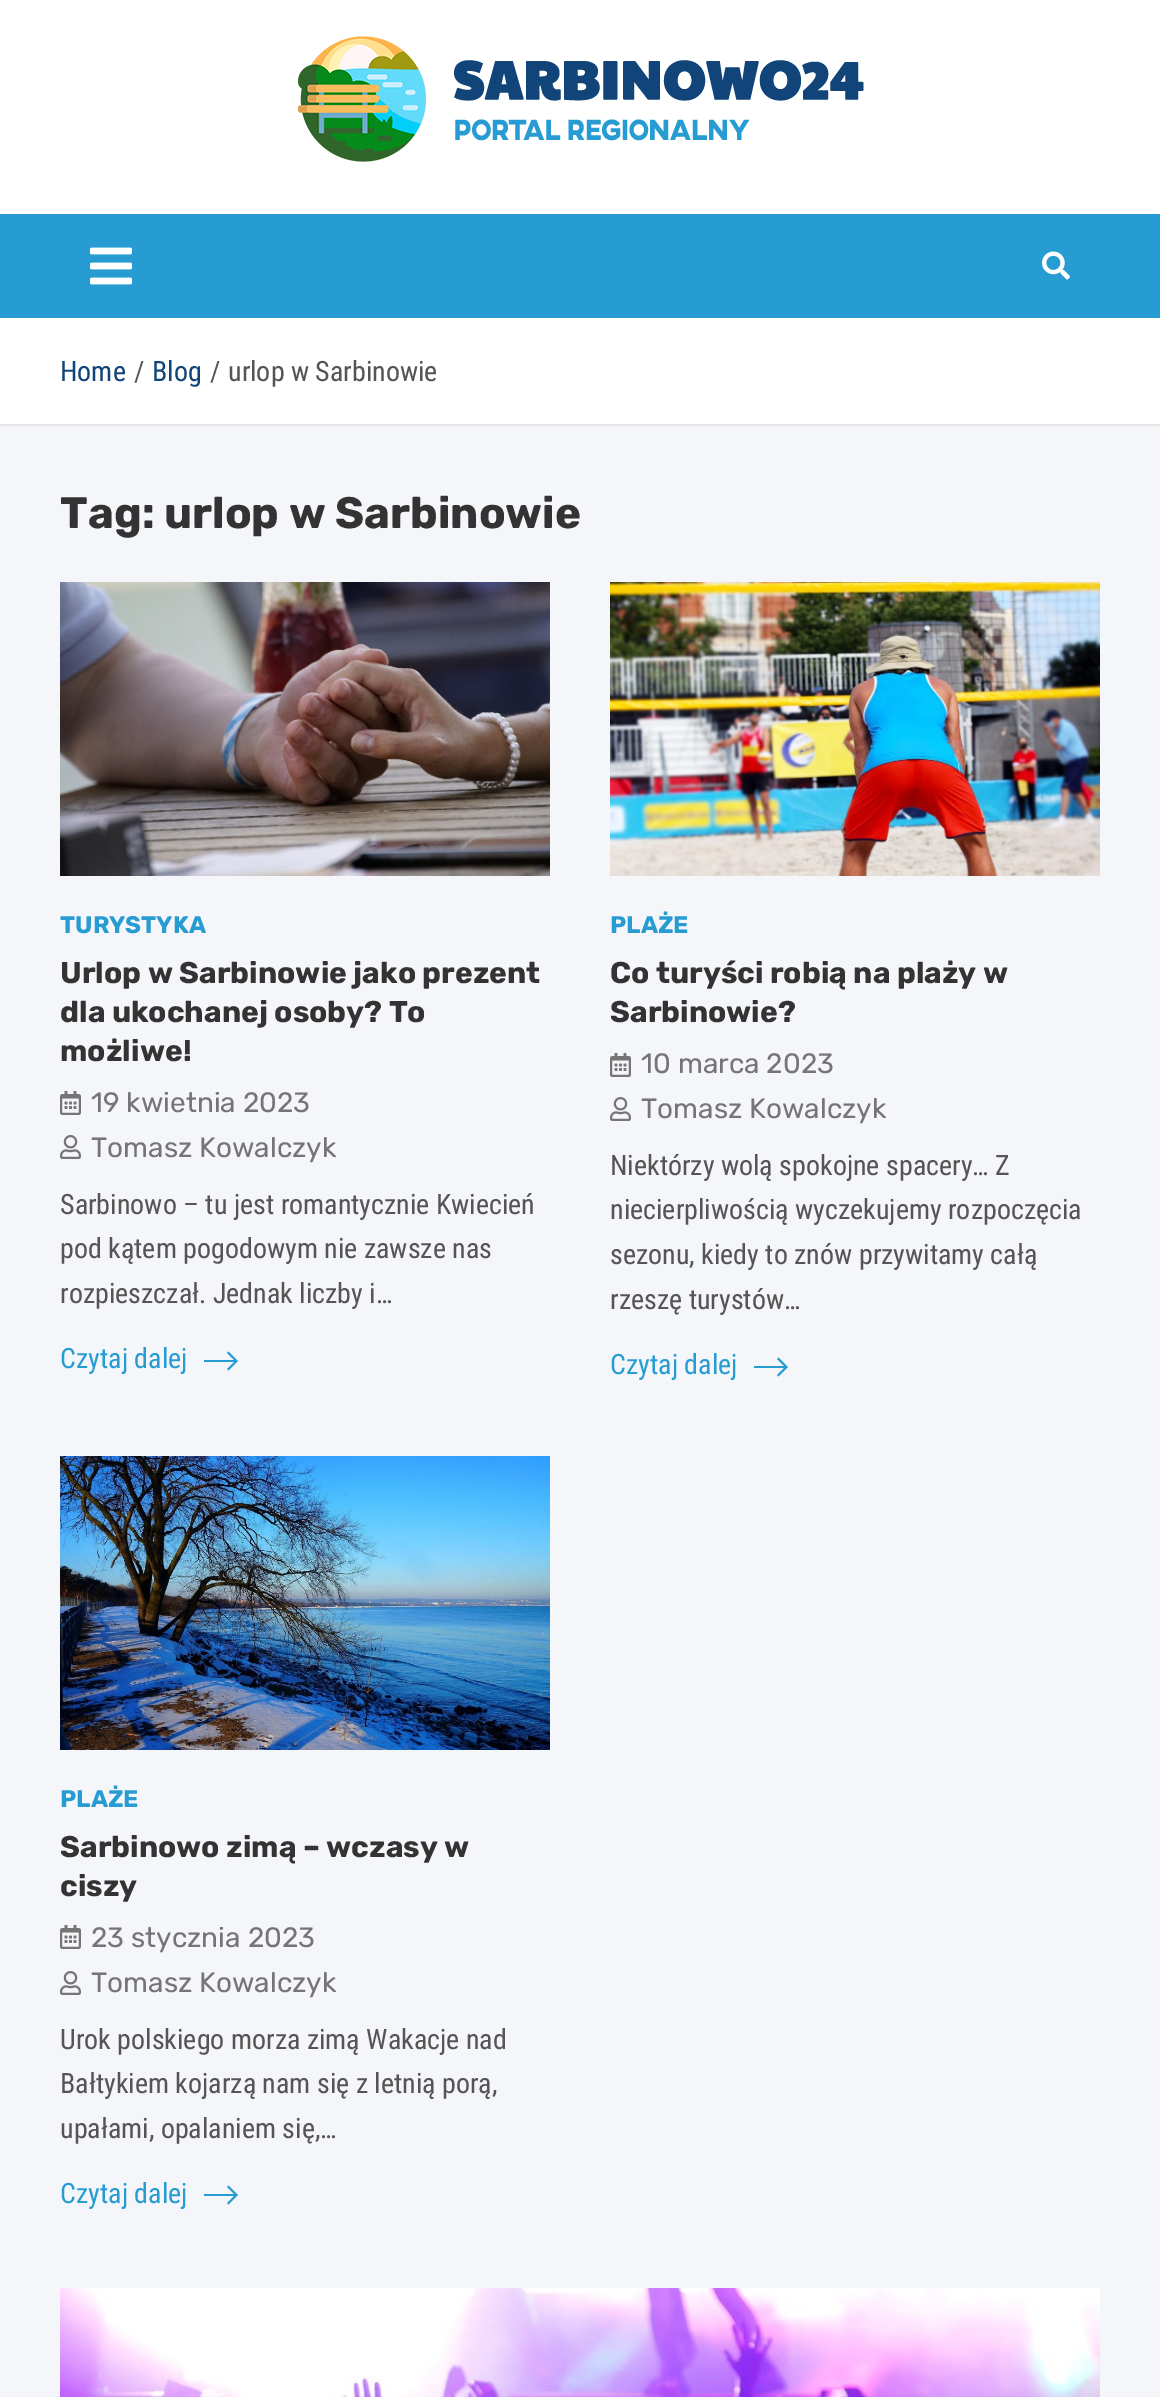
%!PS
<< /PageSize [1160 2397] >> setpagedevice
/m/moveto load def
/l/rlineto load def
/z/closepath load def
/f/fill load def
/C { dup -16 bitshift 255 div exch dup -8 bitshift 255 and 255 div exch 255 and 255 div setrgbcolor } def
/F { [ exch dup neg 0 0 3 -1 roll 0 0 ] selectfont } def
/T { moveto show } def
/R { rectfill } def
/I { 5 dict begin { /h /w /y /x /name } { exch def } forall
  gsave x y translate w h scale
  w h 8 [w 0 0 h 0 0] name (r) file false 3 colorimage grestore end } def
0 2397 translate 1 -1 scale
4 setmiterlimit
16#F4F6F9 C
0 0 1160 2397 R
16#FFFFFF C
0 0 1160 214 R
(1.rgb) 298 36 566 126 I
16#269CD3 C
0 214 1160 104 R
(2.rgb) 90 247 42 38 I
(3.rgb) 1042 251 28 29 I
16#FFFFFF C
0 318 1160 106 R
16#E6E6E6 C
0 424 1160 2 R
/RobotoCondensed-Regular 28 F
16#114478 C
(Home) 60 381 T
16#555555 C
(/) 134 381 T
16#114478 C
(Blog) 152 381 T
16#555555 C
(/) 210 381 T
(urlop w Sarbinowie) 228 381 T
/Rubik-Bold 44 F
16#333333 C
(Tag: urlop w Sarbinowie) 60 528 T
(4.rgb) 60 582 490 294 I
/Rubik-Bold 24 F
16#269CD3 C
(TURYSTYKA) 60 933 T
/Rubik-Bold 30 F
16#333333 C
(Urlop w Sarbinowie jako prezent) 60 983 T
(dla ukochanej osoby? To) 60 1022 T
(możliwe!) 60 1061 T
(5.rgb) 60 1091 21 24 I
/Rubik-Regular 28 F
16#757576 C
(19 kwietnia 2023) 91 1112 T
(6.rgb) 60 1135 21 24 I
(Tomasz Kowalczyk) 91 1157 T
/RobotoCondensed-Regular 28 F
16#555555 C
(Sarbinowo – tu jest romantycznie Kwiecień) 60 1214 T
(pod kątem pogodowym nie zawsze nas) 60 1258 T
(rozpieszczał. Jednak liczby i…) 60 1303 T
16#269CD3 C
(Czytaj dalej) 60 1368 T
228.5 1351.5 m -1.5 1.5 l 7 7 l -30 0 l 0 2 l 30 0 l -7 7 l 1.5 1.5 l 9.5 -9.5 l z f
(7.rgb) 610 582 490 294 I
/Rubik-Bold 24 F
(PLAŻE) 610 933 T
/Rubik-Bold 30 F
16#333333 C
(Co turyści robią na plaży w) 610 983 T
(Sarbinowie?) 610 1022 T
(5.rgb) 610 1053 21 24 I
/Rubik-Regular 28 F
16#757576 C
(10 marca 2023) 641 1073 T
(6.rgb) 610 1097 21 24 I
(Tomasz Kowalczyk) 641 1118 T
/RobotoCondensed-Regular 28 F
16#555555 C
(Niektórzy wolą spokojne spacery… Z) 610 1175 T
(niecierpliwością wyczekujemy rozpoczęcia) 610 1219 T
(sezonu, kiedy to znów przywitamy całą) 610 1264 T
(rzeszę turystów…) 610 1309 T
16#269CD3 C
(Czytaj dalej) 610 1374 T
778.5 1357.5 m -1.5 1.5 l 7 7 l -30 0 l 0 2 l 30 0 l -7 7 l 1.5 1.5 l 9.5 -9.5 l z f
(8.rgb) 60 1456 490 294 I
/Rubik-Bold 24 F
(PLAŻE) 60 1807 T
/Rubik-Bold 30 F
16#333333 C
(Sarbinowo zimą – wczasy w) 60 1857 T
(ciszy) 60 1896 T
(5.rgb) 60 1925 21 24 I
/Rubik-Regular 28 F
16#757576 C
(23 stycznia 2023) 91 1947 T
(6.rgb) 60 1971 21 24 I
(Tomasz Kowalczyk) 91 1992 T
/RobotoCondensed-Regular 28 F
16#555555 C
(Urok polskiego morza zimą Wakacje nad) 60 2049 T
(Bałtykiem kojarzą nam się z letnią porą,) 60 2093 T
(upałami, opalaniem się,…) 60 2138 T
16#269CD3 C
(Czytaj dalej) 60 2203 T
228.5 2185.5 m -1.5 1.5 l 7 7 l -30 0 l 0 2 l 30 0 l -7 7 l 1.5 1.5 l 9.5 -9.5 l z f
(9.rgb) 60 2288 1040 109 I
showpage
